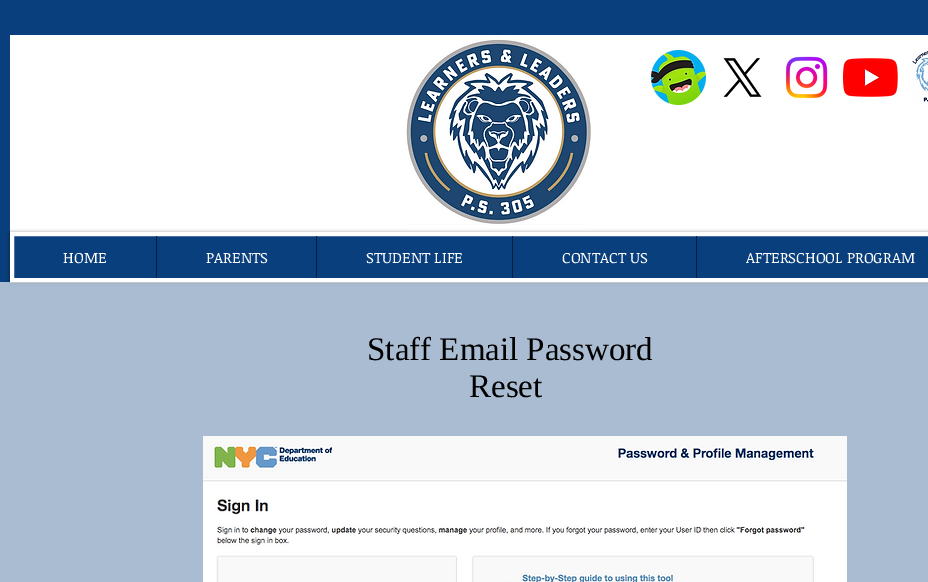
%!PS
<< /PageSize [928 582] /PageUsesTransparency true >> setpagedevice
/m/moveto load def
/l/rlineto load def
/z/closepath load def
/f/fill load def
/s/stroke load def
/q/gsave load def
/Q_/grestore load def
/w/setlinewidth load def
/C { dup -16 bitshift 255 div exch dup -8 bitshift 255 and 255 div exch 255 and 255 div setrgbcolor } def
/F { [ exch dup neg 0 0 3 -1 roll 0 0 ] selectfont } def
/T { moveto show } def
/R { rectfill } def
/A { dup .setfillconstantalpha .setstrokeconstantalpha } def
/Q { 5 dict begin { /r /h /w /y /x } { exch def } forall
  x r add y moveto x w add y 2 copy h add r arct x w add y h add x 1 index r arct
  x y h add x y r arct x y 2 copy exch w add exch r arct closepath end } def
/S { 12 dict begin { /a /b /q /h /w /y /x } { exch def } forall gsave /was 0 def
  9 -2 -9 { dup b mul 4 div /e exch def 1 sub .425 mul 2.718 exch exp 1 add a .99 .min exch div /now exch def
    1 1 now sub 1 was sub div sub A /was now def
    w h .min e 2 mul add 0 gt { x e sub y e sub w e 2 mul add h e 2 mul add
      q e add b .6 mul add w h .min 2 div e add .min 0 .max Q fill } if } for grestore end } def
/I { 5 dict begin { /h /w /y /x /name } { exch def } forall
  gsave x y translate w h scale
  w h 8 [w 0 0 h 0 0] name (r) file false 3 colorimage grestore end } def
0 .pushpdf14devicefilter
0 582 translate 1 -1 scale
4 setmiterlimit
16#093F7C C
0 0 928 582 R
16#FFFFFF C
10 35 918 197 R
(1.rgb) 406 39 185 186 I
(2.rgb) 651 50 55 55 I
(3.rgb) 723 58 39 39 I
(4.rgb) 785 56 43 43 I
(5.rgb) 843 58 55 39 I
(6.rgb) 912 51 16 52 I
16#000000 C
10 233 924 50 0 2 .6 S
16#093F7C C
12 234 m 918 0 l 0 46 l -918 0 l z q f Q_
16#FFFFFF C
4 w
s
/NoticiaText-Regular 15 F
(HOME) 63 263 T
16#041F3E C
156 236 1 42 R
16#FFFFFF C
(PARENTS) 206 263 T
16#041F3E C
316 236 1 42 R
16#FFFFFF C
(STUDENT LIFE) 366 263 T
16#041F3E C
512 236 1 42 R
16#FFFFFF C
(CONTACT US) 562 263 T
16#041F3E C
696 236 1 42 R
16#FFFFFF C
(AFTERSCHOOL PROGRAM) 746 263 T
0.65 A
0 282 928 300 R
/LiberationSerif-Regular 33 F
1 A
16#000000 C
(Staff Email Password) 367 360 T
(Reset) 469 397 T
(7.rgb) 203 436 644 146 I
.poppdf14devicefilter showpage
